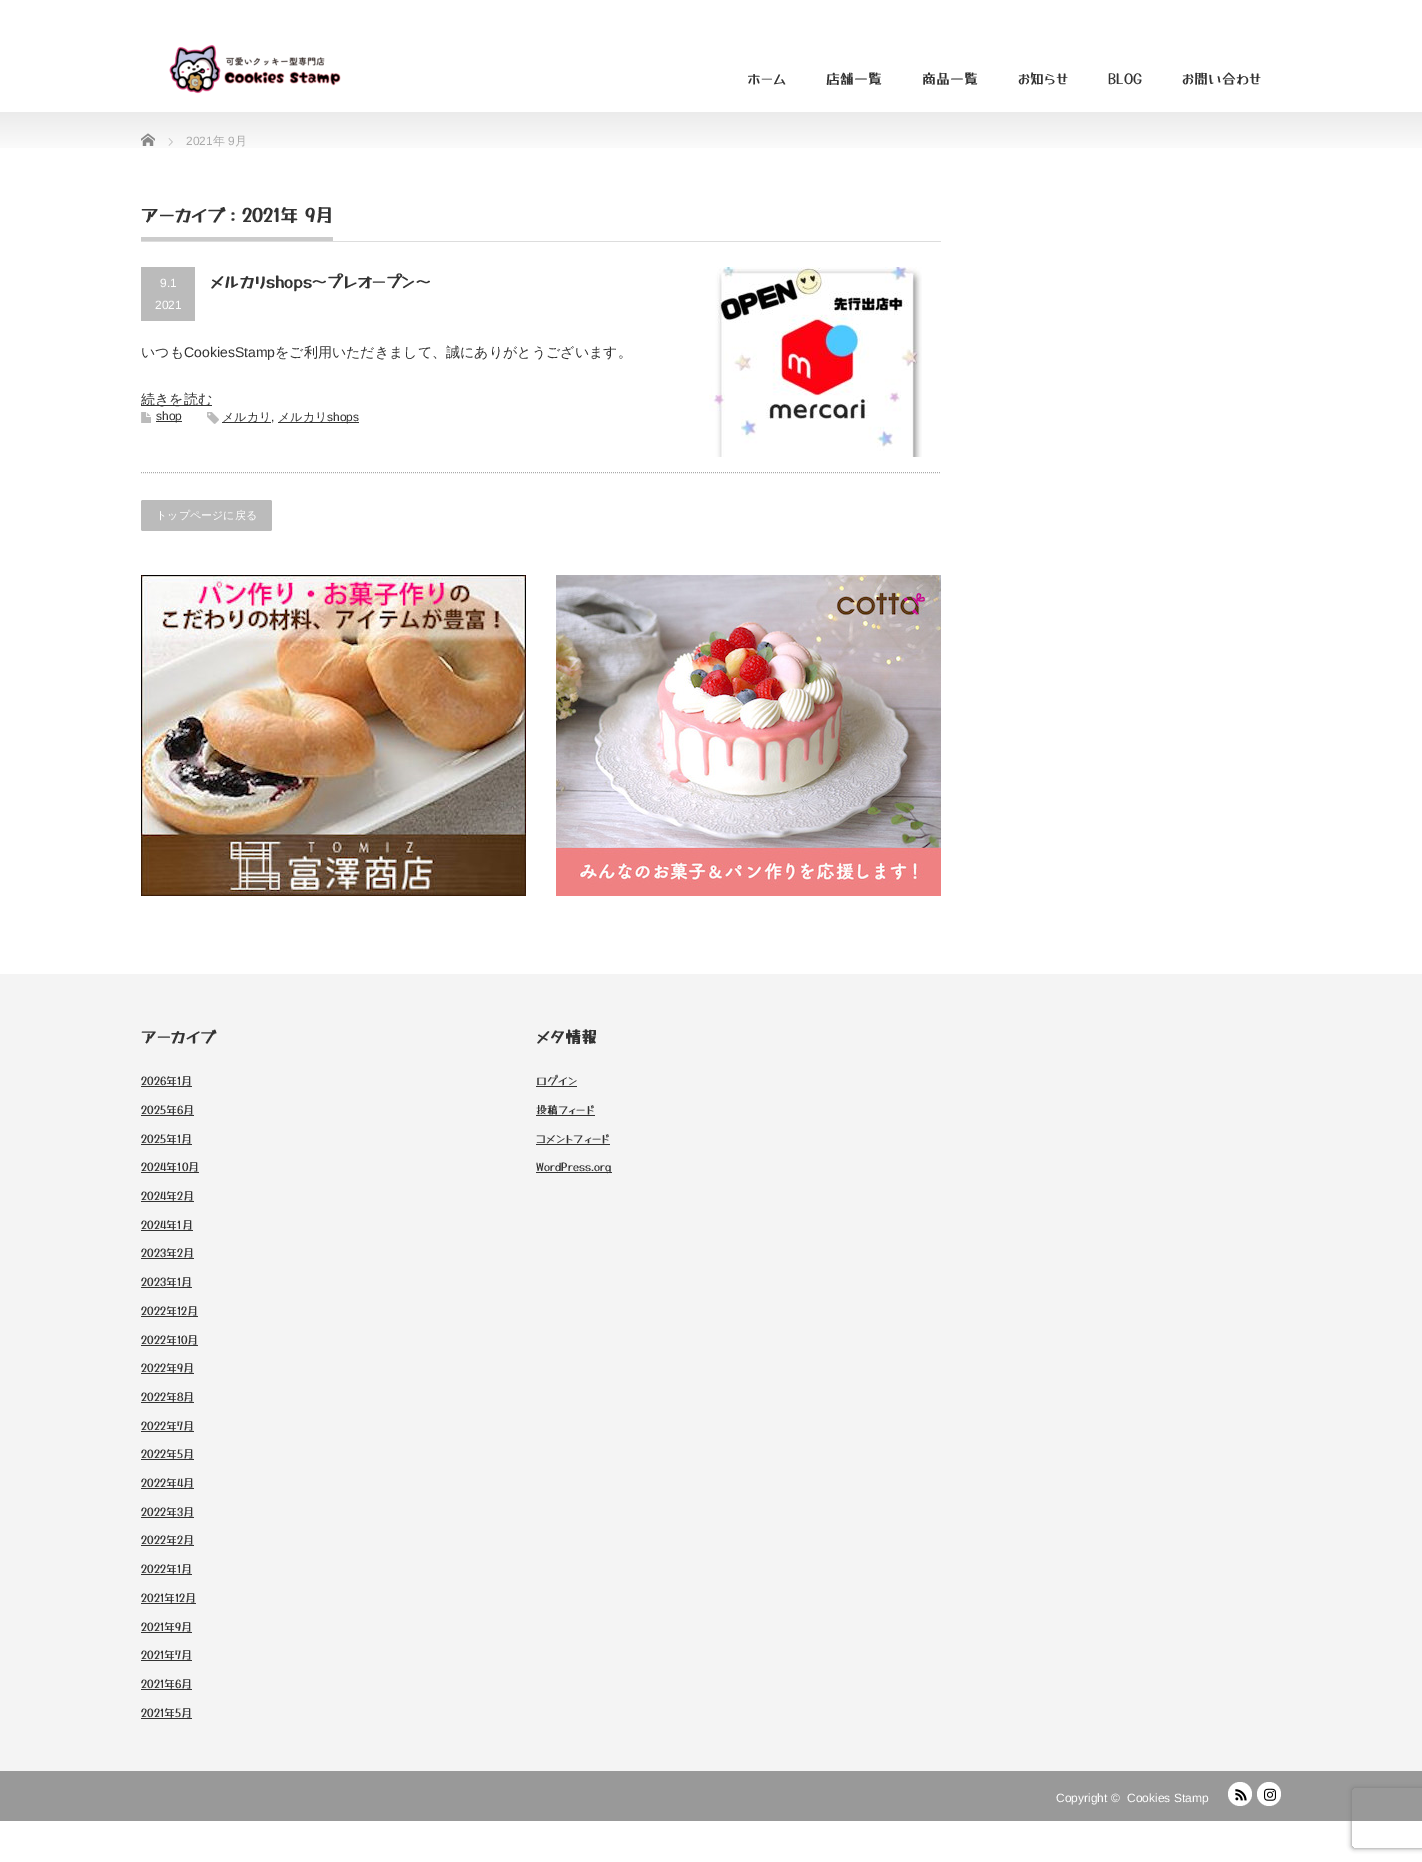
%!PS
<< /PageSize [1422 1862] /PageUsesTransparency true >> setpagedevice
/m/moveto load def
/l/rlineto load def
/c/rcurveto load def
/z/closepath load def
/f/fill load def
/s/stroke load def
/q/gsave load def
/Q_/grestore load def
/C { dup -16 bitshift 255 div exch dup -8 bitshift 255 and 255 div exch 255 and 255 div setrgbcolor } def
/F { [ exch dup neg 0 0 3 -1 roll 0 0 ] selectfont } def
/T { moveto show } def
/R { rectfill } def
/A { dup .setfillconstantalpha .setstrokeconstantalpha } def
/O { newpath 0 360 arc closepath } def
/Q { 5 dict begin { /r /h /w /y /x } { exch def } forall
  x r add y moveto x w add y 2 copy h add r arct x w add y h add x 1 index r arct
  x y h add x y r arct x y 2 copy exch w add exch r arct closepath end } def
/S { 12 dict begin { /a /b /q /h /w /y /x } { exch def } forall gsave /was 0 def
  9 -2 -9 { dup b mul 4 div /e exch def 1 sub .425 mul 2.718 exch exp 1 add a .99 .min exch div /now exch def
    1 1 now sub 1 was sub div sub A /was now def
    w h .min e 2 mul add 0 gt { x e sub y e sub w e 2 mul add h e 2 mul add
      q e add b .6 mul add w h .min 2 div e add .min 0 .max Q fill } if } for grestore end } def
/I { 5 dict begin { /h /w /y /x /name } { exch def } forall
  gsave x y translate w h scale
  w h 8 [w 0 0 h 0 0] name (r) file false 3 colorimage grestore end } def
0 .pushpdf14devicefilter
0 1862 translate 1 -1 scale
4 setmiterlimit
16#FFFFFF C
0 0 1422 1862 R
(1.rgb) 169 44 172 50 I
/YuseiMagic-Regular 14 F
16#333333 C
(ホーム) 747 84 T
(店舗一覧) 826 84 T
(商品一覧) 922 84 T
(お知らせ) 1018 84 T
(BLOG) 1108 84 T
(お問い合わせ) 1182 84 T
(2.rgb) 0 112 1422 36 I
(3.rgb) 141 133 14 13 I
(4.rgb) 168 138 5 8 I
/LiberationSans-Regular 12 F
16#AAAAAA C
(2021) 186 145 T
/WenQuanYiZenHei-Medium 12 F
(年) 213 145 T
/LiberationSans-Regular 12 F
(9) 228 145 T
/WenQuanYiZenHei-Medium 12 F
(月) 235 145 T
16#DDDDDD C
141 241 800 1 R
16#CCCCCC C
141 237 192 4 R
/YuseiMagic-Bold 18 F
16#333333 C
(アーカイブ：2021年 9月) 141 222 T
16#AAAAAA C
[1 1] 0 setdash
141 472.5 m 800 0 l s
16#BBBBBB C
141 267 54 54 R
/LiberationSans-Regular 12 F
16#FFFFFF C
(9.1) 160 287 T
(2021) 155 309 T
/YuseiMagic-Bold 16 F
16#333333 C
(メルカリshops〜プレオープン〜) 210 288 T
/WenQuanYiZenHei-Medium 14 F
(いつも) 141 357 T
/LiberationSans-Regular 14 F
(CookiesStamp) 184 357 T
/WenQuanYiZenHei-Medium 14 F
(をご利用いただきまして、誠にありがとうございます。) 275 357 T
141 405 71 1 R
(続きを読む) 141 404 T
(5.rgb) 141 412 10 11 I
156 421 26 1 R
/LiberationSans-Regular 12 F
(shop) 156 420 T
(6.rgb) 207 412 12 12 I
222 422 49 1 R
/WenQuanYiZenHei-Medium 12 F
(メルカリ) 222 421 T
/LiberationSans-Regular 12 F
(,) 271 421 T
278 422 81 1 R
/WenQuanYiZenHei-Medium 12 F
(メルカリ) 278 421 T
/LiberationSans-Regular 12 F
(shops) 327 421 T
(7.rgb) 709 267 213 190 I
16#BBBBBB C
141 500 131 31 2 Q f
/WenQuanYiZenHei-Medium 11 F
16#FFFFFF C
(トップページに戻る) 156 519 T
(8.rgb) 141 575 385 321 I
(9.rgb) 556 575 385 321 I
16#F4F4F4 C
0 974 1422 797 R
/YuseiMagic-Bold 16 F
16#333333 C
(アーカイブ) 141 1043 T
/YuseiMagic-Regular 11 F
(2026年1月) 141 1085 T
141 1086 51 1 R
(2025年6月) 141 1114 T
141 1115 53 1 R
(2025年1月) 141 1143 T
141 1144 51 1 R
(2024年10月) 141 1171 T
141 1172 58 1 R
(2024年2月) 141 1200 T
141 1201 53 1 R
(2024年1月) 141 1229 T
141 1230 52 1 R
(2023年2月) 141 1257 T
141 1258 53 1 R
(2023年1月) 141 1286 T
141 1287 51 1 R
(2022年12月) 141 1315 T
141 1316 57 1 R
(2022年10月) 141 1344 T
141 1345 57 1 R
(2022年9月) 141 1372 T
141 1373 53 1 R
(2022年8月) 141 1401 T
141 1402 53 1 R
(2022年7月) 141 1430 T
141 1431 53 1 R
(2022年5月) 141 1458 T
141 1459 53 1 R
(2022年4月) 141 1487 T
141 1488 53 1 R
(2022年3月) 141 1516 T
141 1517 53 1 R
(2022年2月) 141 1544 T
141 1545 53 1 R
(2022年1月) 141 1573 T
141 1574 51 1 R
(2021年12月) 141 1602 T
141 1603 55 1 R
(2021年9月) 141 1631 T
141 1632 51 1 R
(2021年7月) 141 1659 T
141 1660 51 1 R
(2021年6月) 141 1688 T
141 1689 51 1 R
(2021年5月) 141 1717 T
141 1718 51 1 R
/YuseiMagic-Bold 16 F
(メタ情報) 536 1043 T
/YuseiMagic-Regular 11 F
(ログイン) 536 1085 T
536 1086 41 1 R
(投稿フィード) 536 1114 T
536 1115 59 1 R
(コメントフィード) 536 1143 T
536 1144 74 1 R
536 1172 76 1 R
(WordPress.org) 536 1171 T
16#999999 C
0 1771 1422 50 R
/LiberationSans-Regular 12 F
16#FFFFFF C
(Copyright ©) 1056 1802 T
(Cookies Stamp) 1127 1802 T
1240 1794 12 O f
(10.rgb) 1235 1789 12 12 I
1269 1794 12 O f
(11.rgb) 1264 1788 12 13 I
q
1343 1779 m 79 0 l 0 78 l -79 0 l z 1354 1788 m 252 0 l 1 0 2 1 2 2 c 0 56 l 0 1 -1 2 -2 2 c -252 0 l -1 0 -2 -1 -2 -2 c 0 -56 l 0 -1 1 -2 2 -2 c z eoclip newpath
16#808080 C
1352 1788 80 60 2 2.5 1 S
Q_
.poppdf14devicefilter showpage
